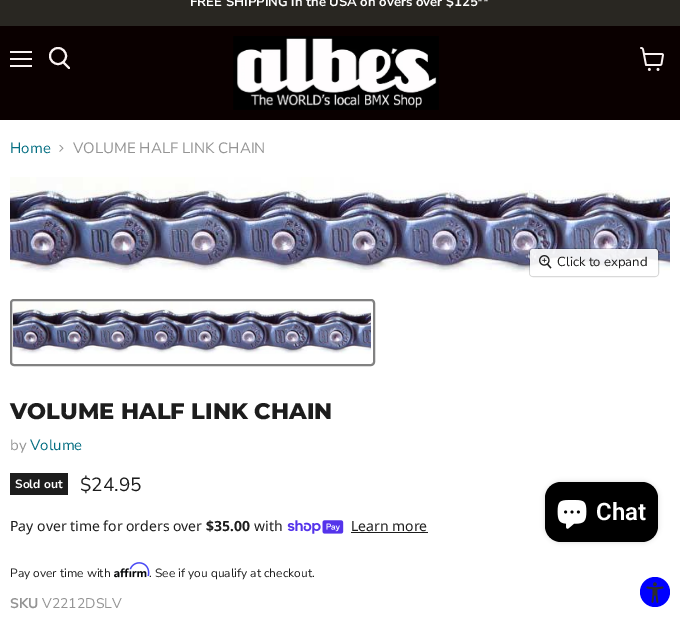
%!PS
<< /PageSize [680 627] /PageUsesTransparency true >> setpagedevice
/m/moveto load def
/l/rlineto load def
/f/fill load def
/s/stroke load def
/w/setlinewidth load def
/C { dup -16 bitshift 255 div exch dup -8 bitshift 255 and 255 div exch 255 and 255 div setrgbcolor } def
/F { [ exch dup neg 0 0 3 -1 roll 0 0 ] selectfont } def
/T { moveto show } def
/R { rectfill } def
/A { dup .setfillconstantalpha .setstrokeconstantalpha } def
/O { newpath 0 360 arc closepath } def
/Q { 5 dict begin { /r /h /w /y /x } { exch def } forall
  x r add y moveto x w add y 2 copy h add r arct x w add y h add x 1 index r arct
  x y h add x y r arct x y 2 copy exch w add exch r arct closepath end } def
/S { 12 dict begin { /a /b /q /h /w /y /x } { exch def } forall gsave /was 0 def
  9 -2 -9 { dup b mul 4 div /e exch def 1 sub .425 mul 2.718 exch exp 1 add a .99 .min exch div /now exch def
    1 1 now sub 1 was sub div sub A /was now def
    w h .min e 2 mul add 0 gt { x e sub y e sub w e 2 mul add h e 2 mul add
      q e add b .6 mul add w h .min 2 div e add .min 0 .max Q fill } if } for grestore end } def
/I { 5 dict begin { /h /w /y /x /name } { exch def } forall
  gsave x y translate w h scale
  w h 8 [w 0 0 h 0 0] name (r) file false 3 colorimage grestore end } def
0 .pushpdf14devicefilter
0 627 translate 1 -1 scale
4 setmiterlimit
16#FFFFFF C
0 0 680 627 R
16#292722 C
0 0 680 26 R
/NunitoSans-Bold 13.1 F
16#FFFFFF C
(FREE SHIPPING in the USA on overs over $125**) 190 6 T
16#0A0000 C
0 26 680 94 R
16#FAF2F2 C
10 51 22 2 R
10 58 22 2 R
10 65 22 2 R
2 w
1 setlinecap
69 68 m -5.5 -5.5 l s
0 setlinecap
58 56 8 O s
(1.rgb) 233 36 206 74 I
(2.rgb) 640 47 24 24 I
/NunitoSans-Regular 15 F
16#046E82 C
(Home) 10 153 T
(3.rgb) 59 144 5 8 I
16#949494 C
(VOLUME HALF LINK CHAIN) 73 153 T
(4.rgb) 10 177 660 96 I
0.15 A
16#000000 C
1 w
529.5 248.5 129 28 3.5 Q s
0.9 A
16#FFFFFF C
530 249 128 27 3 Q f
1 A
(5.rgb) 539 255 13 14 I
/NunitoSans-Regular 13.1 F
16#1D1D1D C
(Click to expand) 557 266 T
16#818181 C
2 w
11 300 363 65 3 Q s
(6.rgb) 13 302 358 52 I
/Montserrat-ExtraBold 22.5 F
16#1D1D1D C
(VOLUME HALF LINK CHAIN) 10 419 T
/NunitoSans-Regular 15 F
16#949494 C
(by) 10 450 T
16#046E82 C
(Volume) 30 450 T
16#1D1D1D C
10 473 58 22 R
/NunitoSans-Bold 12 F
16#FFFFFF C
(Sold out) 15 488 T
/NunitoSans-Regular 19 F
16#1D1D1D C
($24.95) 80 491 T
/NotoSans-Regular 14 F
(Pay over time for orders over) 10 531 T
/NotoSans-Bold 14 F
($35.00) 206 531 T
/NotoSans-Regular 14 F
(with) 254 531 T
(7.rgb) 287 520 57 14 I
(Learn more) 351 531 T
351 532 77 1 R
/NunitoSans-Regular 12 F
(Pay over time with) 10 577 T
(9.rgb) 114 568 33 10 I
(. See if you qualify at checkout.) 149 577 T
(8.rgb) 129 562 21 15 I
/NunitoSans-Bold 14 F
16#949494 C
(SKU) 10 608 T
/NunitoSans-Regular 14 F
(V2212DSLV) 42 608 T
16#000000 C
545 482 113 60 16 2.5 .15 S
545 482 113 60 16 Q f
(10.rgb) 557 500 30 29 I
/Roboto-SemiBold 24 F
16#FFFFFF C
(Chat) 596 520 T
16#0000FF C
655 592 15 O f
(11.rgb) 646 582 18 21 I
.poppdf14devicefilter showpage
